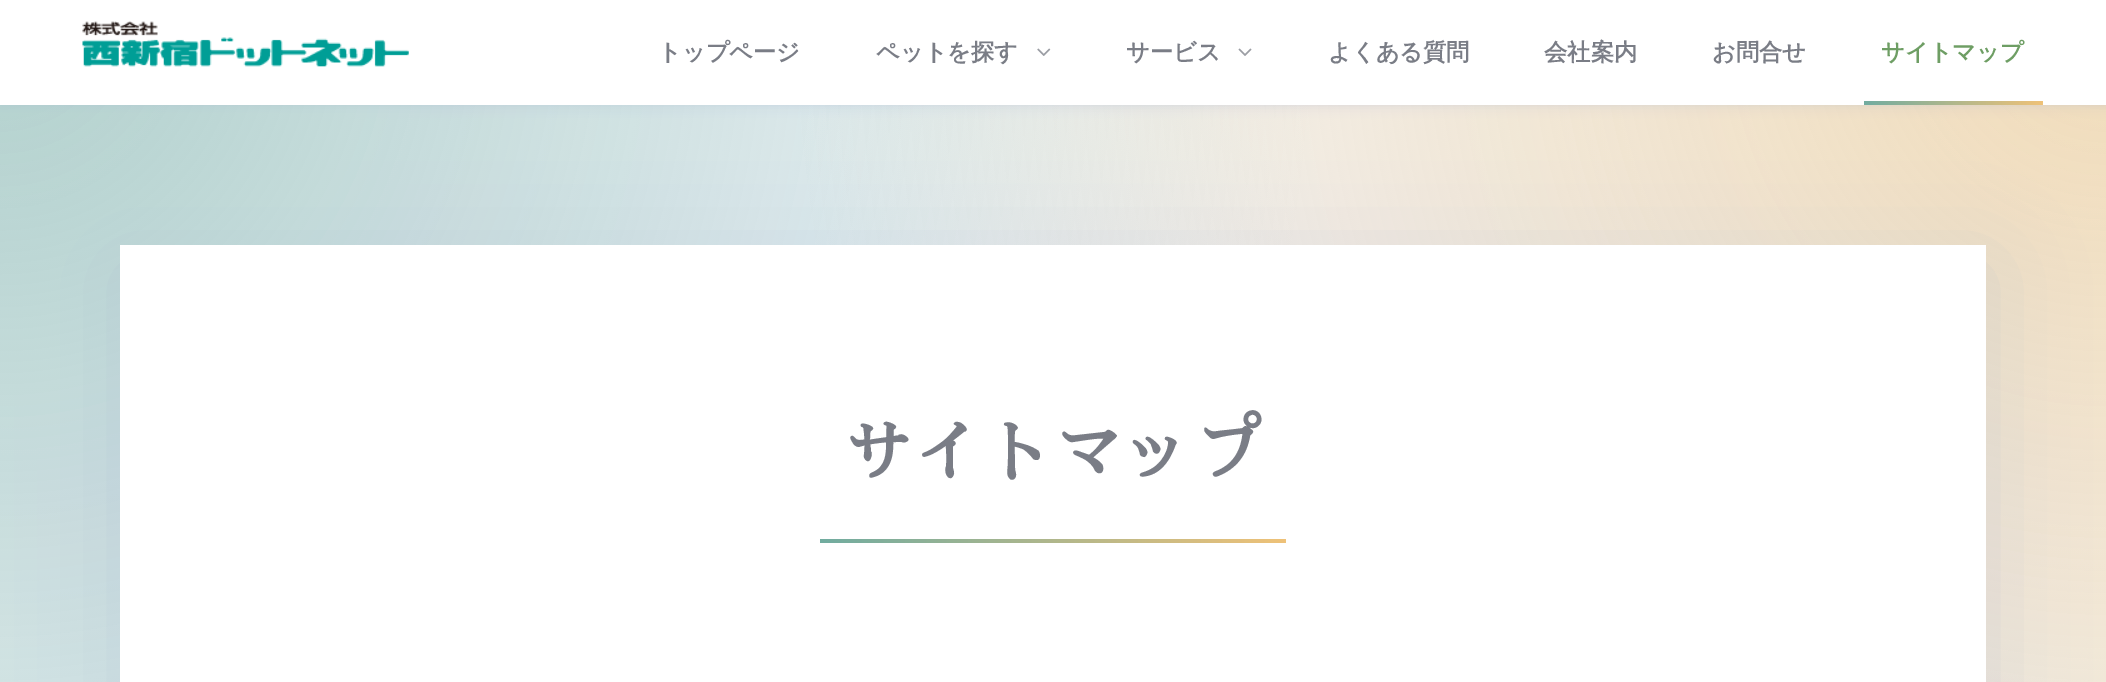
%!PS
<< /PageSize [2106 682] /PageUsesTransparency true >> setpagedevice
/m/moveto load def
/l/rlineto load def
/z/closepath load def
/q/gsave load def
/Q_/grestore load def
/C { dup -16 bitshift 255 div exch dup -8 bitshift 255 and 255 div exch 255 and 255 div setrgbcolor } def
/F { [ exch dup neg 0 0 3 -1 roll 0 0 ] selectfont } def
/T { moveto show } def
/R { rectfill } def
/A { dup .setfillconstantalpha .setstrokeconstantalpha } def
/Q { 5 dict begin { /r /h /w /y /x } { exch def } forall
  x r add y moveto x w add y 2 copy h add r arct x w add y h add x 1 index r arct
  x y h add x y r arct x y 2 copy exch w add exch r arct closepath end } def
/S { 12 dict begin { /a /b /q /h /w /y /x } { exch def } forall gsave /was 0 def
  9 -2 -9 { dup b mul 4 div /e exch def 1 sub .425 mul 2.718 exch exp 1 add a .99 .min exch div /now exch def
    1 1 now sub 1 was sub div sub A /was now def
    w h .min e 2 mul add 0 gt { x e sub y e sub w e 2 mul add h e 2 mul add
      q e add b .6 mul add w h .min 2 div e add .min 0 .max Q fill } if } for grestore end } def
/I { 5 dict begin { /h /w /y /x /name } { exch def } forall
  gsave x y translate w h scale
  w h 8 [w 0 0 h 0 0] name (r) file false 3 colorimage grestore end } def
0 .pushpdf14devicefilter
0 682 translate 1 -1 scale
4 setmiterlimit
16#F2F5FA C
0 0 2106 682 R
(1.rgb) 0 105 2106 577 I
16#A1B1CC C
0 0 2106 105 0 6 .33 S
16#FFFFFF C
0 0 2106 105 R
(2.rgb) 82 21 327 46 I
/WenQuanYiZenHei-Bold 23.25 F
16#7A7D86 C
(トップページ) 658 60 T
(ペットを探す) 876 60 T
(3.rgb) 1037 48 14 8 I
(サービス) 1126 60 T
(4.rgb) 1238 48 14 8 I
(よくある質問) 1328 60 T
(会社案内) 1544 60 T
(お問合せ) 1712 60 T
16#6E9E64 C
(サイトマップ) 1881 60 T
q 1864 101 m 179 0 l 0 4 l -179 0 l z clip newpath
<< /ShadingType 2 /ColorSpace /DeviceRGB /Coords [1864 103 2043 103] /Extend [true true] /Function << /FunctionType 2 /Domain [0 1] /C0 [.443 .675 .627] /C1 [.937 .761 .471] /N 1 >> >> shfill Q_
16#A1B1CC C
118 265 1871 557 0 46.5 .33 S
16#FFFFFF C
120 245 1866 437 R
/SawarabiMincho-Bold 70 F
16#7A7D86 C
(サイトマップ) 843 476 T
q 820 539 m 466 0 l 0 4 l -466 0 l z clip newpath
<< /ShadingType 2 /ColorSpace /DeviceRGB /Coords [820 541 1286 541] /Extend [true true] /Function << /FunctionType 2 /Domain [0 1] /C0 [.443 .675 .627] /C1 [.937 .761 .471] /N 1 >> >> shfill Q_
.poppdf14devicefilter showpage
